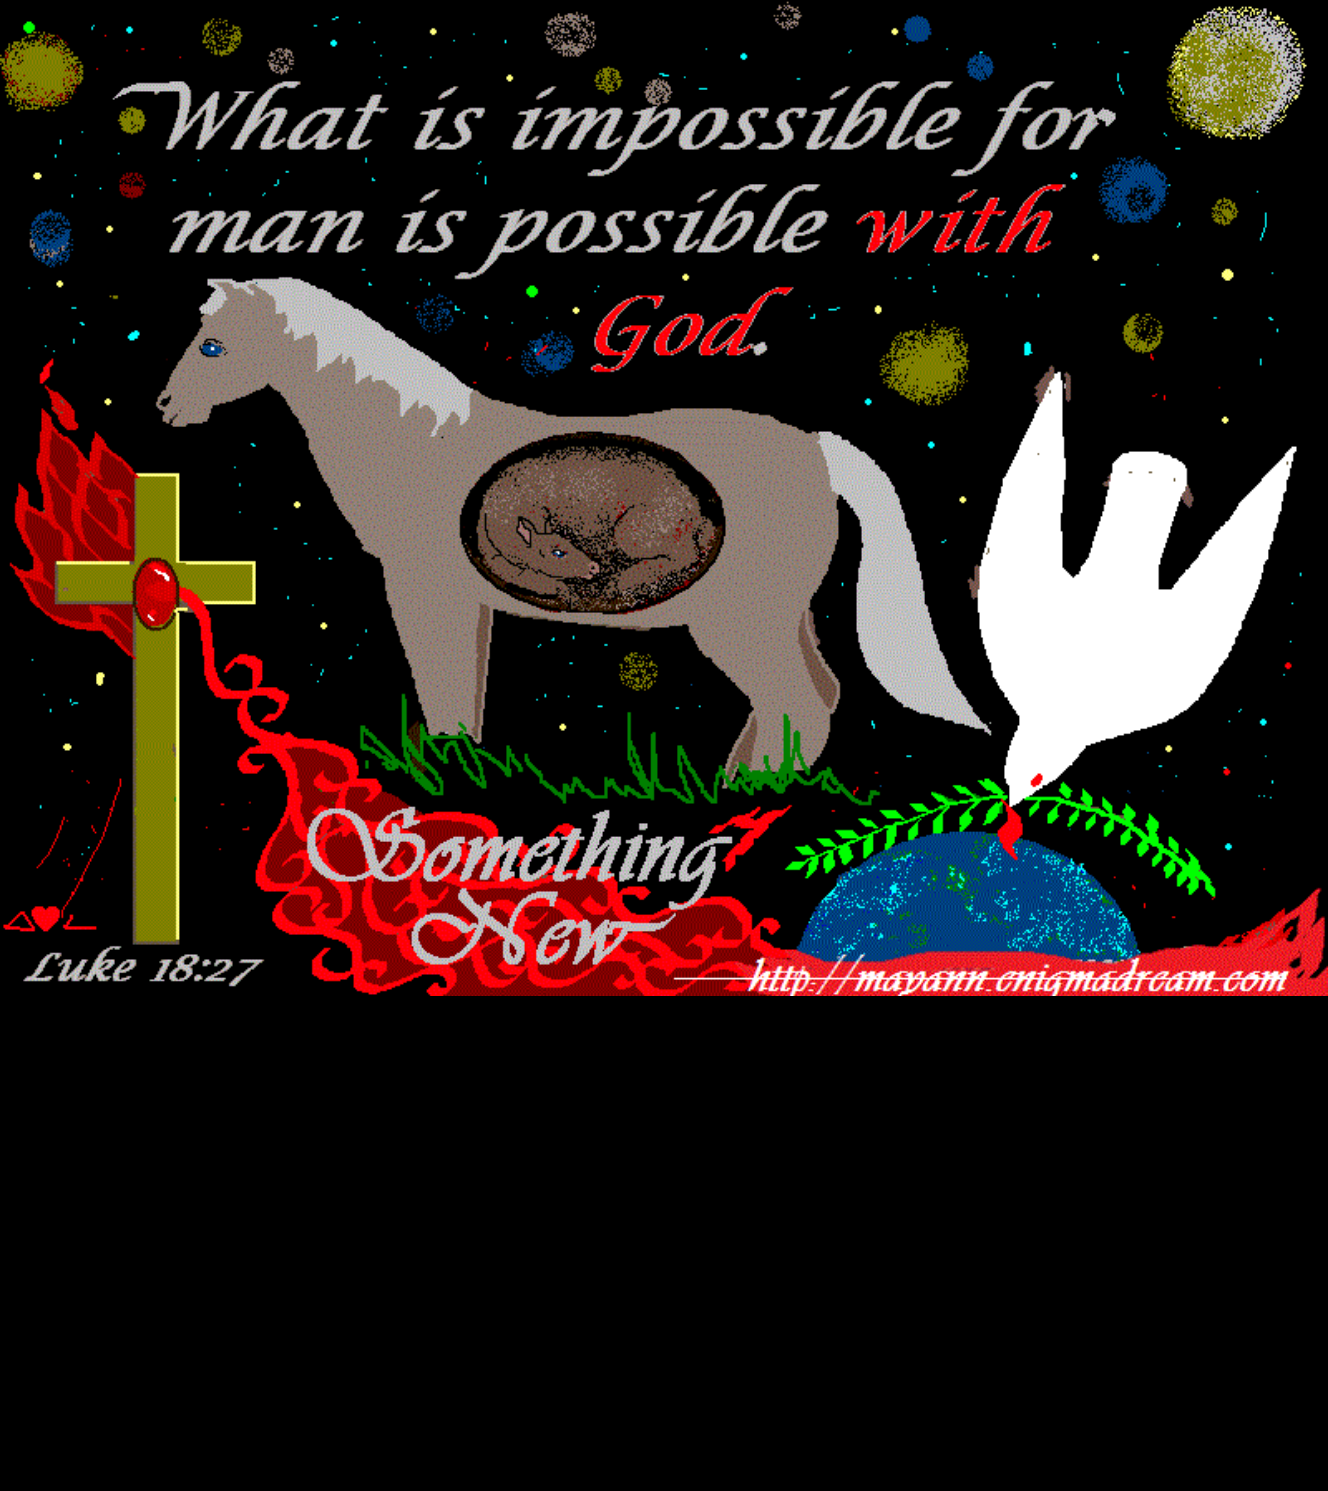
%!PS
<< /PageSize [1328 1491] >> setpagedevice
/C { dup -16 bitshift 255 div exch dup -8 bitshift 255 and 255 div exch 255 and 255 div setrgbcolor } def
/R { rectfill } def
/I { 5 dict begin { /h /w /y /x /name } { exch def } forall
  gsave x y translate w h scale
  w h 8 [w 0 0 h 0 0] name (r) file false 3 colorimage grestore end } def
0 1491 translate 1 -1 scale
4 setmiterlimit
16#000000 C
0 0 1328 1491 R
(1.rgb) 0 1 1328 995 I
showpage
